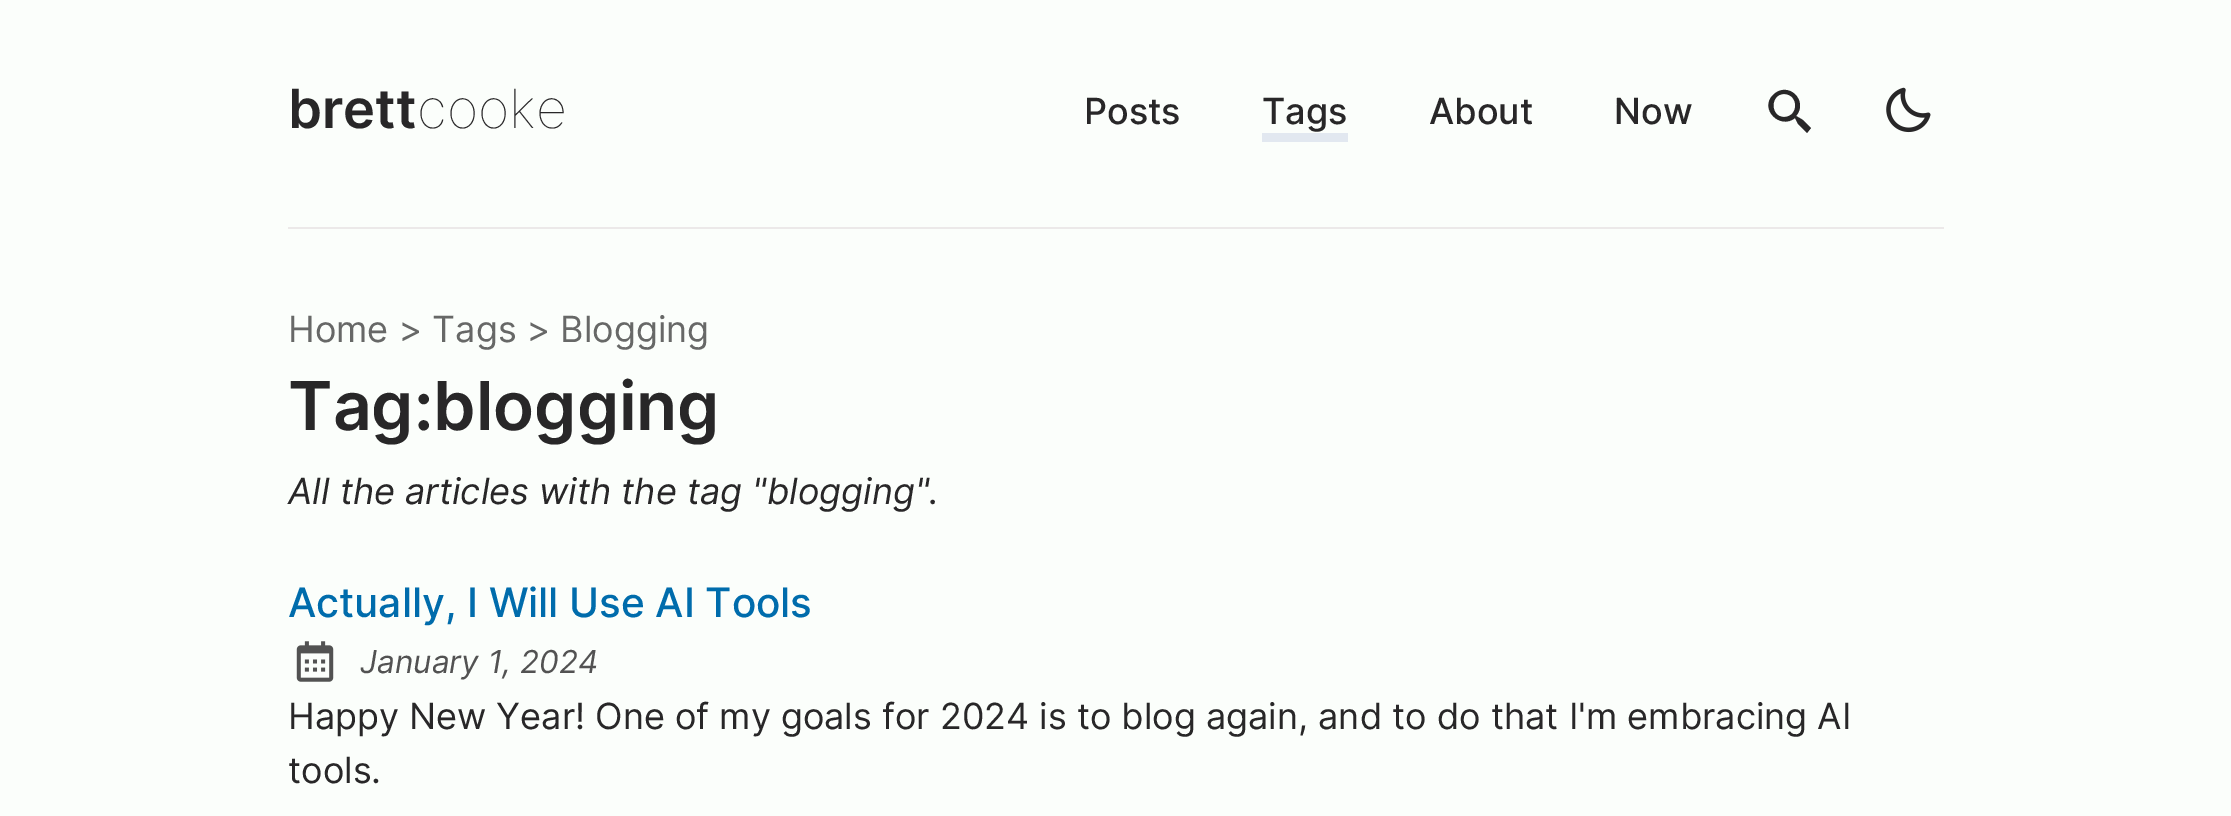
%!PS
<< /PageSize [2231 816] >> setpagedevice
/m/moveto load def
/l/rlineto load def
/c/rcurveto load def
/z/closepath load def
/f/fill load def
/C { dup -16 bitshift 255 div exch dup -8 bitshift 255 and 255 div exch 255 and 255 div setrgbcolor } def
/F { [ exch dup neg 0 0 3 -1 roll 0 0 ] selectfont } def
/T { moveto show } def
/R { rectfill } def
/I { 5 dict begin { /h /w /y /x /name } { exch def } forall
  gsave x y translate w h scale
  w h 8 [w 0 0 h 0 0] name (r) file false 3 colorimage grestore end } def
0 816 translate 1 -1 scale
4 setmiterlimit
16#FBFEFB C
0 0 2231 816 R
/Inter-SemiBoldItalic 54 F
16#282728 C
(brett) 288 128 T
/Inter-ThinItalic 54 F
(cooke) 417 128 T
/Inter-MediumItalic 36 F
(Posts) 1084 124 T
(Tags) 1262 124 T
16#E2E8F0 C
1262 133 86 9 R
16#282728 C
(About) 1429 124 T
(Now) 1614 124 T
1807 124 m -5 -5 -4 -4 -11 -8 c 13 -15 -8 -36 -23 -21 c -14 14 7 35 22 23 c 3 6 l 9 9 l 4 -5 l z 1784 117 m -14 0 -14 -23 0 -23 c 15 0 15 23 0 23 c z f
(1.rgb) 1886 87 45 46 I
16#ECE9E9 C
288 227 1656 2 R
/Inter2-Italic 36 F
16#676867 C
(Home > Tags > Blogging) 288 342 T
/Inter-SemiBoldItalic 67.5 F
16#282728 C
(Tag:blogging) 288 430 T
/Inter-Italic 36 F
(All the articles with the tag "blogging".) 288 504 T
/Inter-MediumItalic 40.5 F
16#006CAC C
(Actually, I Will Use AI Tools) 288 617 T
(2.rgb) 296 641 38 41 I
/Inter-Italic 31.5 F
16#525252 C
(January 1, 2024) 360 673 T
/Inter2-Italic 36 F
16#282728 C
(Happy New Year! One of my goals for 2024 is to blog again, and to do that I'm embracing AI) 288 729 T
(tools.) 288 783 T
showpage
